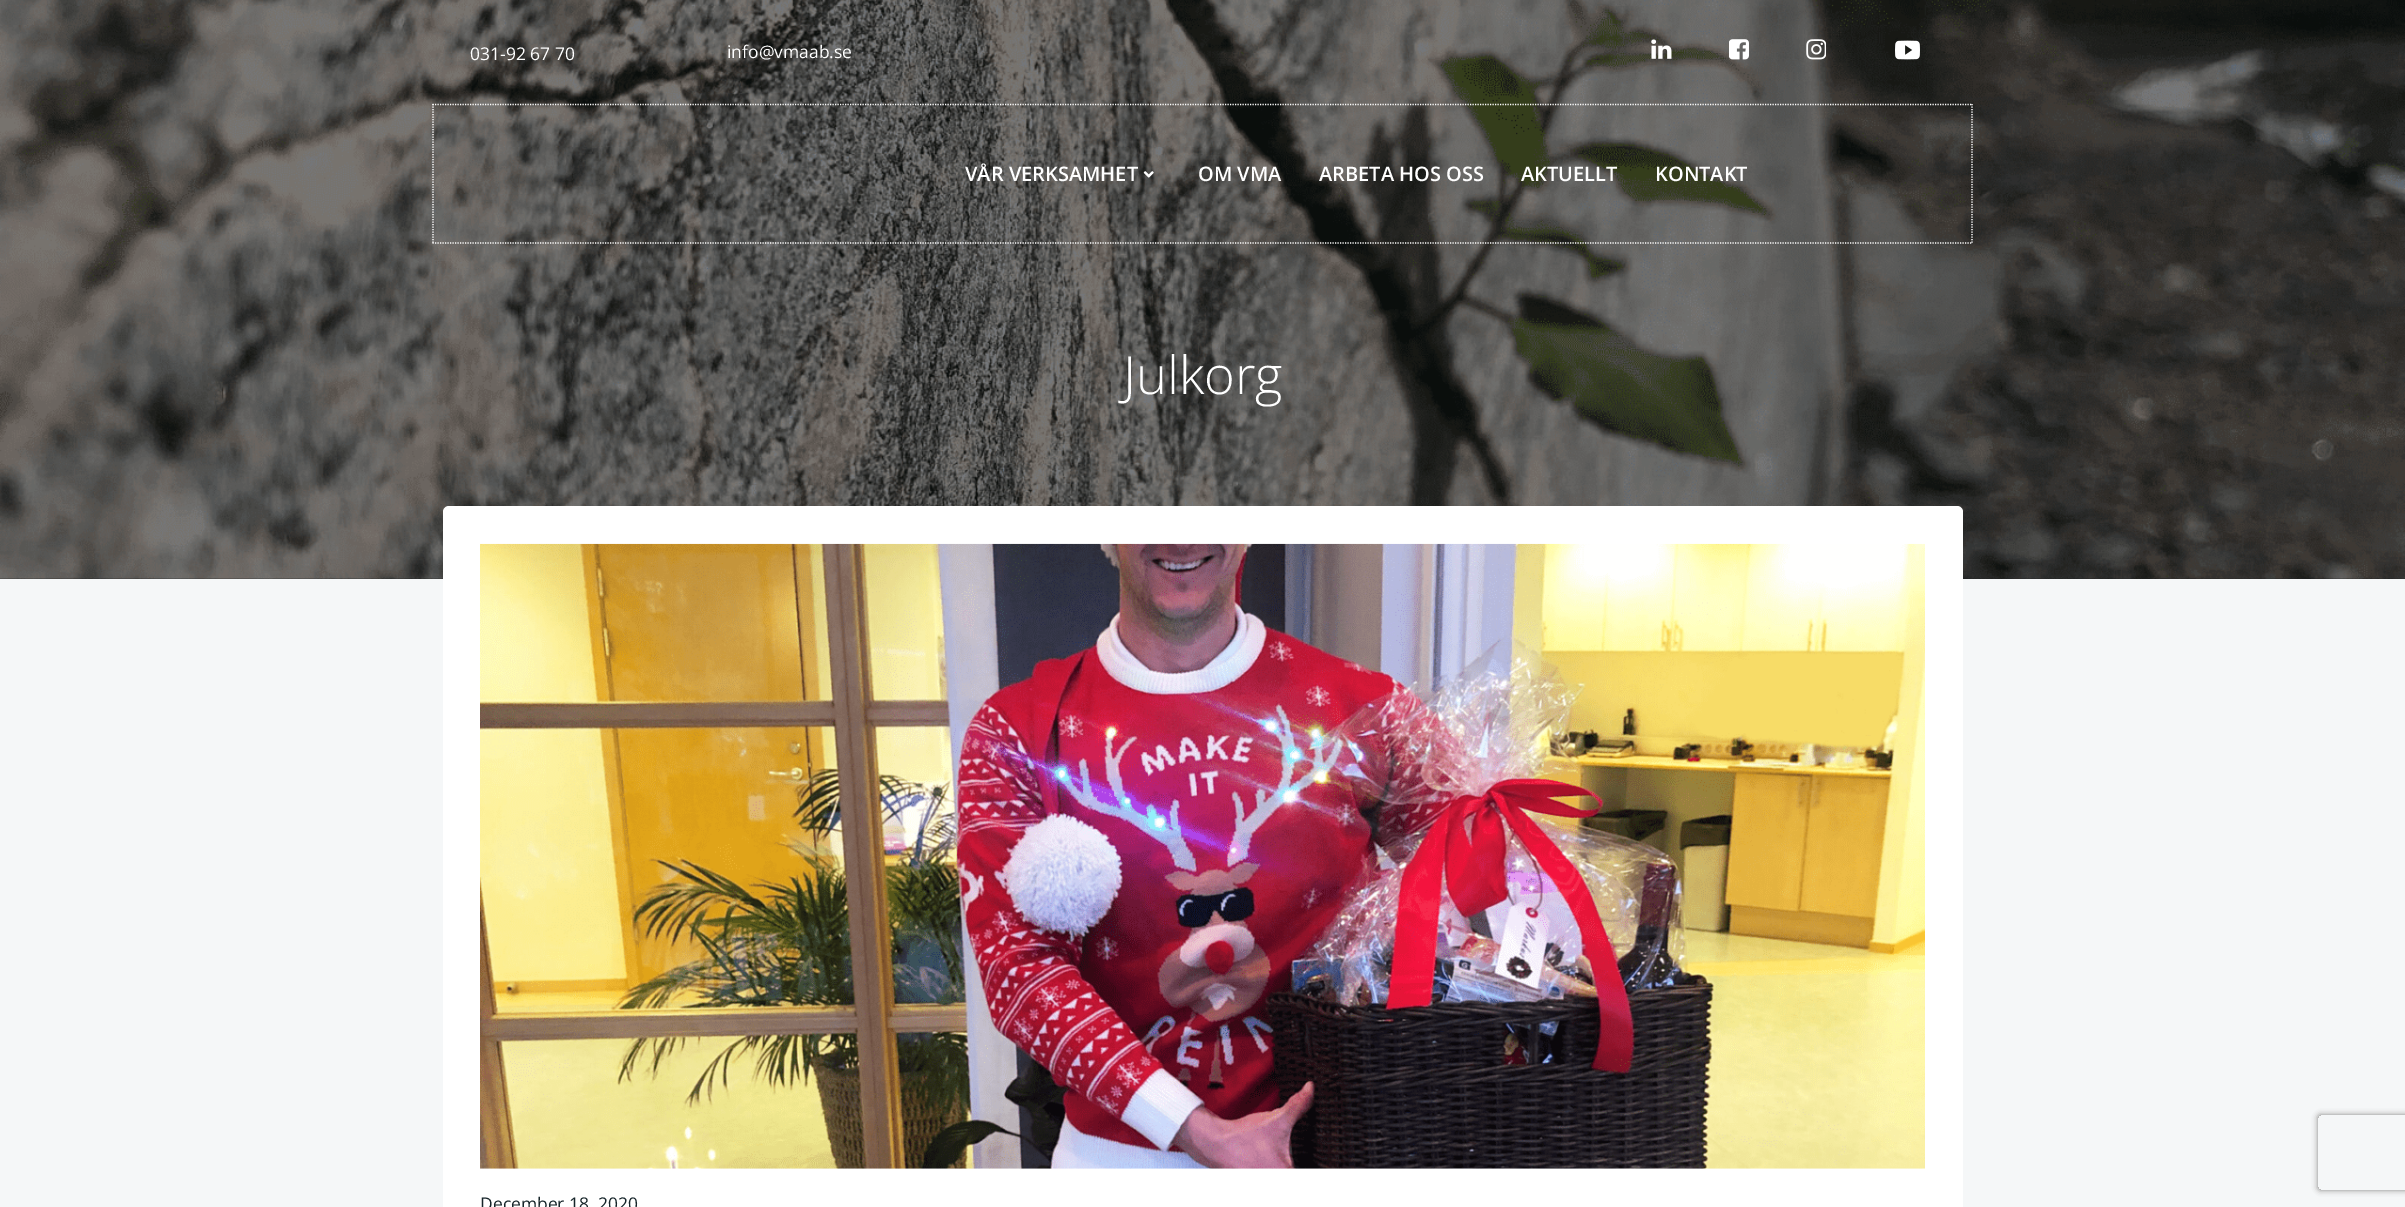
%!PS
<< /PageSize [2405 1207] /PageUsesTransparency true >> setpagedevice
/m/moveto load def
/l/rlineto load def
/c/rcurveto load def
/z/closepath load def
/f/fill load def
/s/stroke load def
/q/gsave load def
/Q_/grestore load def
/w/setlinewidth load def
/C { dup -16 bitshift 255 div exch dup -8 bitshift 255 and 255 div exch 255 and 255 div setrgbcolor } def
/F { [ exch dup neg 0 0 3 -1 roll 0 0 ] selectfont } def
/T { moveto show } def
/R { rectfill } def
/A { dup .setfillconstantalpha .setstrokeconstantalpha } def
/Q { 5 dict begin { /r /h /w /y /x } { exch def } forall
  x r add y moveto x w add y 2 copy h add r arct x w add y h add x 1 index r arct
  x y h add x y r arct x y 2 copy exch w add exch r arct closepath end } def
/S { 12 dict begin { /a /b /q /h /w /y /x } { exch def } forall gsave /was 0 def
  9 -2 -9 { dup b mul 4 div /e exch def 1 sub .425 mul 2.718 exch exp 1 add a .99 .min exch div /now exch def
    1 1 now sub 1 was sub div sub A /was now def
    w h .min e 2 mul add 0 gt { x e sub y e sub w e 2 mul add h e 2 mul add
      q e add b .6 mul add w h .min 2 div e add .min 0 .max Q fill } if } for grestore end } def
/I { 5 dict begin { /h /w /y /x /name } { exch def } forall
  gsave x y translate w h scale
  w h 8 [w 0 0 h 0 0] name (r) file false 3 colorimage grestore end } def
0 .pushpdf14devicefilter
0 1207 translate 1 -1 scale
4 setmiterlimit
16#FFFFFF C
0 0 2405 1207 R
(6.rgb) 0 0 2405 579 I
/OpenSans-Regular 17.5 F
(031-92 67 70) 470 60 T
(info@vmaab.se) 727 58 T
(1.rgb) 1651 39 21 20 I
(2.rgb) 1729 39 20 21 I
(3.rgb) 1806 39 20 21 I
(4.rgb) 1895 40 25 20 I
1.2 w
[1.25 1.25] 0 setdash
432.5 104.5 m 1540 0 l s
1972 104 m 0 140 l s
432.5 243 m 1540 0 l s
433 104 m 0 140 l s
/OpenSans-SemiBold 20 F
(VÅR VERKSAMHET) 965 181 T
(5.rgb) 1143 171 11 7 I
(OM VMA) 1198 181 T
(ARBETA HOS OSS) 1319 181 T
(AKTUELLT) 1521 181 T
(KONTAKT) 1655 181 T
/OpenSans-Light 52.5 F
(Julkorg) 1123 394 T
16#F5F7F8 C
0 579 2405 628 R
16#FFFFFF C
443 506 1520 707 6 Q f
(7.rgb) 480 543 1445 626 I
/OpenSans-Regular 17.5 F
16#17252A C
(December 18, 2020) 480 1210 T
q
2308 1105 m 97 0 l 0 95 l -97 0 l z 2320.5 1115 m 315 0 l 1.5 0 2.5 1 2.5 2.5 c 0 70 l 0 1.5 -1 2.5 -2.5 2.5 c -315 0 l -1.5 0 -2.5 -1 -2.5 -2.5 c 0 -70 l 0 -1.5 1 -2.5 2.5 -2.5 c z eoclip newpath
16#808080 C
2318 1115 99 75 2.5 3 1 S
Q_
.poppdf14devicefilter showpage
